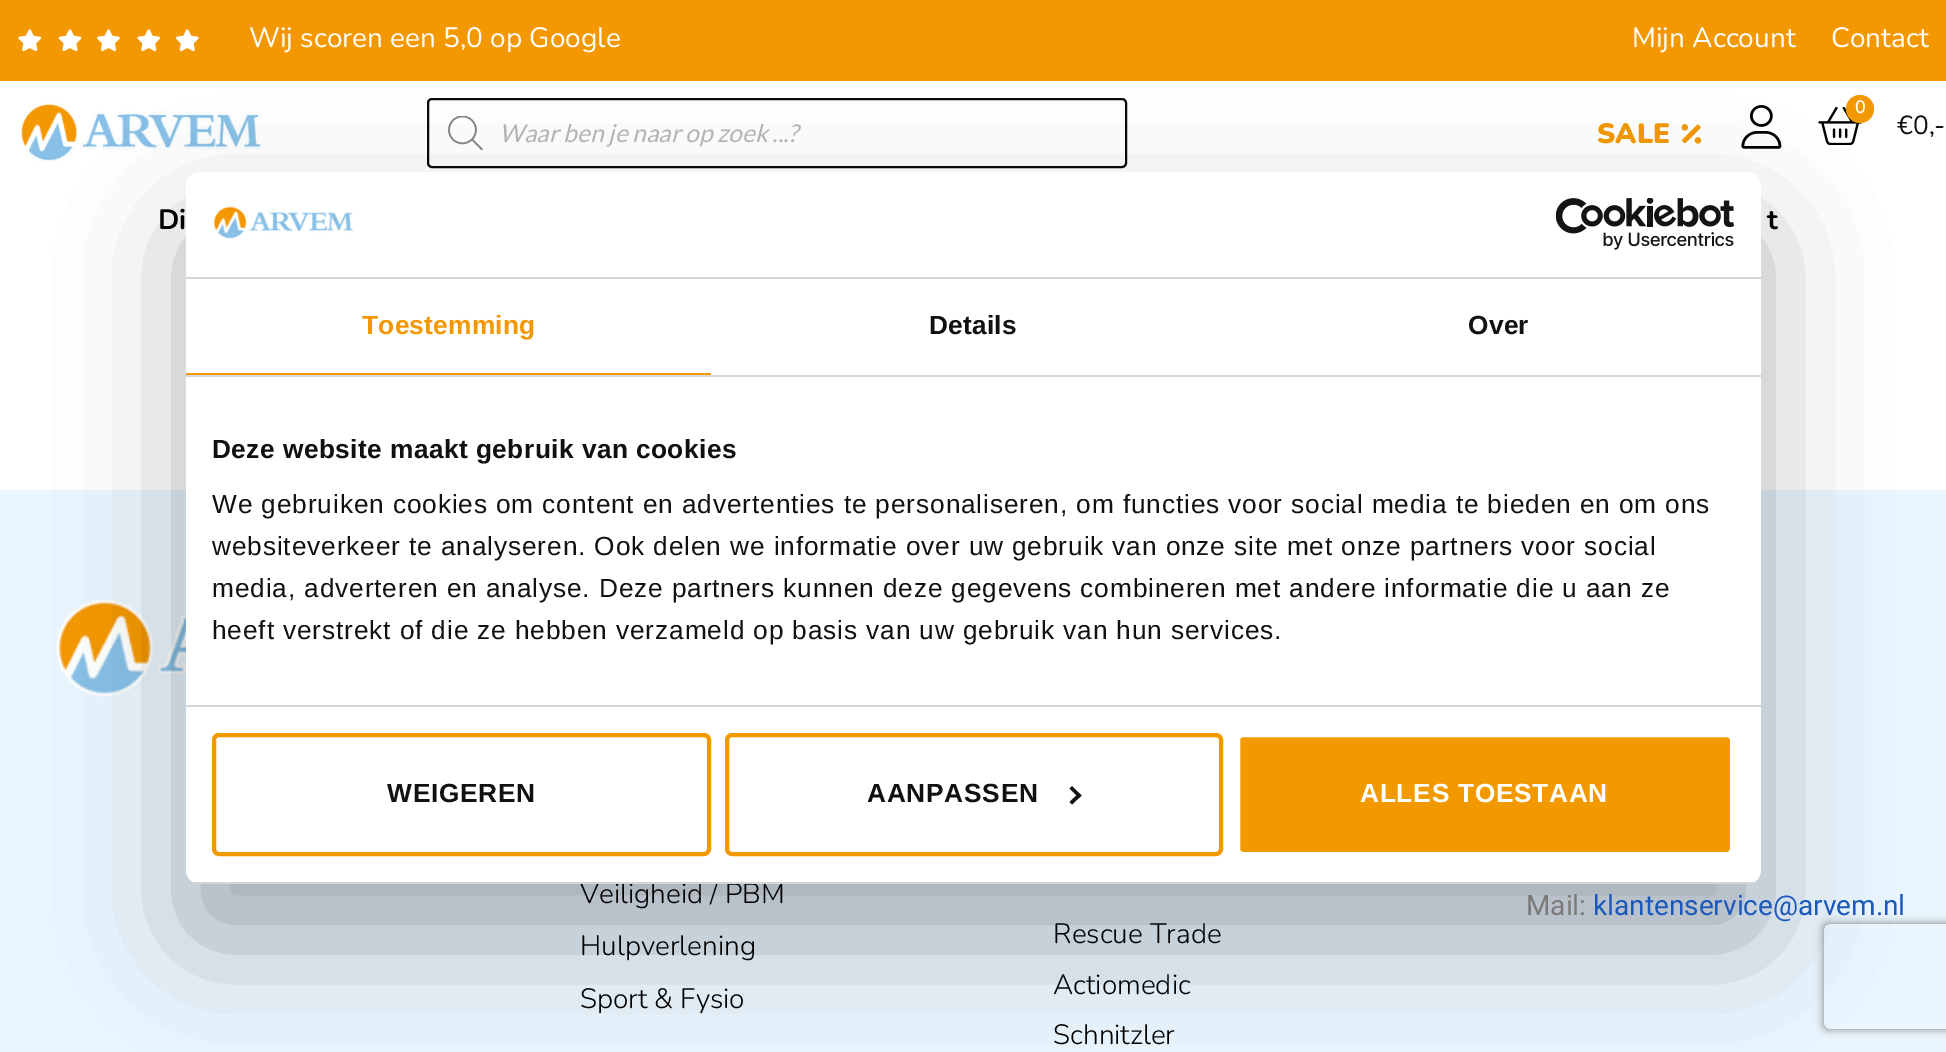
%!PS
<< /PageSize [1946 1052] /PageUsesTransparency true >> setpagedevice
/m/moveto load def
/l/rlineto load def
/c/rcurveto load def
/z/closepath load def
/f/fill load def
/s/stroke load def
/q/gsave load def
/Q_/grestore load def
/w/setlinewidth load def
/C { dup -16 bitshift 255 div exch dup -8 bitshift 255 and 255 div exch 255 and 255 div setrgbcolor } def
/F { [ exch dup neg 0 0 3 -1 roll 0 0 ] selectfont } def
/T { moveto show } def
/R { rectfill } def
/A { dup .setfillconstantalpha .setstrokeconstantalpha } def
/O { newpath 0 360 arc closepath } def
/Q { 5 dict begin { /r /h /w /y /x } { exch def } forall
  x r add y moveto x w add y 2 copy h add r arct x w add y h add x 1 index r arct
  x y h add x y r arct x y 2 copy exch w add exch r arct closepath end } def
/S { 12 dict begin { /a /b /q /h /w /y /x } { exch def } forall gsave /was 0 def
  9 -2 -9 { dup b mul 4 div /e exch def 1 sub .425 mul 2.718 exch exp 1 add a .99 .min exch div /now exch def
    1 1 now sub 1 was sub div sub A /was now def
    w h .min e 2 mul add 0 gt { x e sub y e sub w e 2 mul add h e 2 mul add
      q e add b .6 mul add w h .min 2 div e add .min 0 .max Q fill } if } for grestore end } def
/I { 5 dict begin { /h /w /y /x /name } { exch def } forall
  gsave x y translate w h scale
  w h 8 [w 0 0 h 0 0] name (r) file false 3 colorimage grestore end } def
0 .pushpdf14devicefilter
0 1052 translate 1 -1 scale
4 setmiterlimit
16#FFFFFF C
0 0 1946 1052 R
16#F39801 C
0 0 1946 81 R
(1.rgb) 18 29 24 23 I
(2.rgb) 58 29 24 23 I
(3.rgb) 97 29 23 23 I
(1.rgb) 137 29 24 23 I
(4.rgb) 175 29 24 23 I
/Nunito-Regular 28 F
16#FFFFFF C
(Wij scoren een 5,0 op Google) 249 47 T
(Mijn Account) 1632 47 T
(Contact) 1831 47 T
(5.rgb) 19 102 244 61 I
16#0A0A0A C
2 w
428 99 698 68 4 Q s
(6.rgb) 448 116 35 35 I
/Lato-Italic 24.5 F
16#B6B6B6 C
(Waar ben je naar op zoek ...?) 499 142 T
/Nunito-Black 28 F
16#F39801 C
(SALE) 1597 143 T
(7.rgb) 1681 124 21 20 I
(8.rgb) 1741 105 41 44 I
(9.rgb) 1818 107 44 38 I
1860 109 14 O f
/Nunito-SemiBold 18 F
16#FFFFFF C
(0) 1855 113 T
/Nunito-Regular 26.25 F
16#111111 C
(€0,-) 1897 134 T
/Nunito-Bold 28 F
16#000000 C
(Di) 158 229 T
(t) 1767 229 T
16#EAF6FF C
0 490 1946 562 R
(12.rgb) 56 599 130 98 I
16#000000 C
186 228 1575 712 14 59.5 .3 S
/Nunito-Light 28 F
(Veiligheid / PBM) 580 903 T
16#FFFFFF C
186 172 1575 712 14 Q f
16#D6D6D6 C
186 277 1575 2 R
(10.rgb) 213 206 141 33 I
(11.rgb) 1556 198 178 52 I
186 375 1575 2 R
16#F29900 C
186 373 525 2 R
/LiberationSans-Bold 26.25 F
16#F39801 C
362 334 m .25 0 (Toestemming) ashow
16#111111 C
929 334 m .25 0 (Details) ashow
1468 334 m .25 0 (Over) ashow
16#D6D6D6 C
186 705 1575 2 R
16#111111 C
212 458 m .45 0 (Deze website maakt gebruik van cookies) ashow
/LiberationSans-Regular 26.25 F
212 513 m .88 0 (We gebruiken cookies om content en advertenties te personaliseren, om functies voor social media te bieden en om ons) ashow
212 555 m .88 0 (websiteverkeer te analyseren. Ook delen we informatie over uw gebruik van onze site met onze partners voor social) ashow
212 597 m .88 0 (media, adverteren en analyse. Deze partners kunnen deze gegevens combineren met andere informatie die u aan ze) ashow
212 639 m .88 0 (heeft verstrekt of die ze hebben verzameld op basis van uw gebruik van hun services.) ashow
q
186 172 1575 712 14 Q clip newpath
16#D6D6D6 C
186 882 1575 2 R
Q_
16#F29900 C
4 w
214 735 495 119 5 Q s
/LiberationSans-Bold 26.25 F
16#111111 C
387 802 m .75 0 (WEIGEREN) ashow
16#F29900 C
727 735 494 119 5 Q s
16#111111 C
867 802 m .75 0 (AANPASSEN) ashow
16#141414 C
1072 786 m 9.5 9.5 l -2.5 2.5 l -9.5 -9.5 l z f
1079 793 m 2.5 2.5 l -9.5 9 l -2.5 -2.5 l z f
16#F29900 C
1238 735 494 119 5 Q q f Q_
16#FFFFFF C
s
1360 802 m .75 0 (ALLES TOESTAAN) ashow
/Nunito-Light 28 F
16#000000 C
(Hulpverlening) 580 955 T
(Sport & Fysio) 580 1008 T
/Roboto-Regular 28 F
16#7A7A7A C
(Mail:) 1526 915 T
16#1D58BD C
(klantenservice@arvem.nl) 1593 915 T
/Nunito-Light 28 F
16#000000 C
(Rescue Trade) 1053 943 T
(Actiomedic) 1053 994 T
(Schnitzler) 1053 1044 T
q
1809 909 m 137 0 l 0 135 l -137 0 l z 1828 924 m 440 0 l 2 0 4 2 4 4 c 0 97 l 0 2 -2 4 -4 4 c -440 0 l -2 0 -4 -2 -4 -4 c 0 -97 l 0 -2 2 -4 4 -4 c z eoclip newpath
16#808080 C
1824 924 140 105 4 4.5 1 S
Q_
.poppdf14devicefilter showpage
